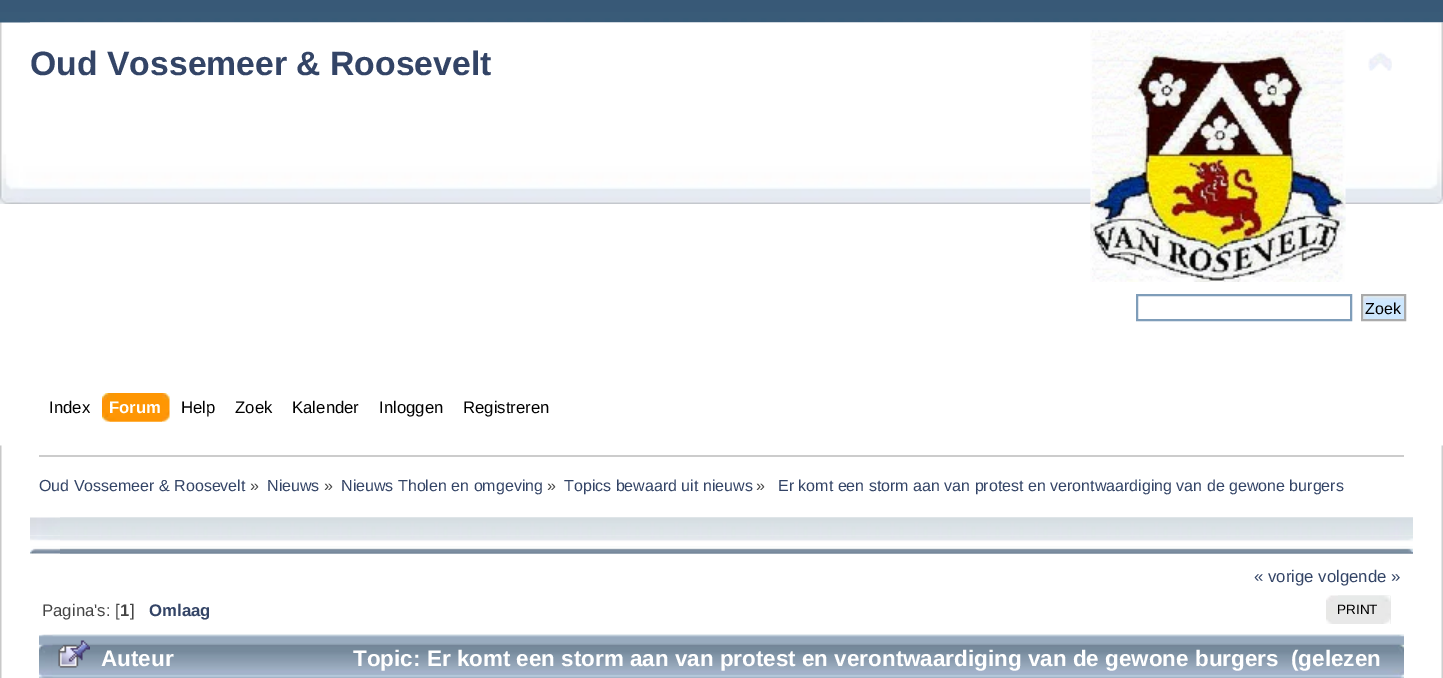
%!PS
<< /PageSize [1443 678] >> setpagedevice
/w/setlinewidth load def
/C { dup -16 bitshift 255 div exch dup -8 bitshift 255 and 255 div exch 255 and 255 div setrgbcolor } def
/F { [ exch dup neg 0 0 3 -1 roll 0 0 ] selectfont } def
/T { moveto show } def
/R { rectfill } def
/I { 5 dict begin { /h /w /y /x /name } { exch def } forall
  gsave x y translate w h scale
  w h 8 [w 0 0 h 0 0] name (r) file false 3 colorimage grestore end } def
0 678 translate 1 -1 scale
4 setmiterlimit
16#FFFFFF C
0 0 1443 678 R
(1.rgb) 0 0 1443 23 I
(2.rgb) 0 22 1443 182 I
(3.rgb) 30 22 1413 182 I
/LiberationSans-Bold 33.75 F
16#334466 C
(Oud Vossemeer & Roosevelt) 30 75 T
(4.rgb) 1090 30 256 252 I
(5.rgb) 1368 52 24 19 I
16#7F9DB9 C
2 w
1137 295 214 25 rectstroke
(6.rgb) 1363 296 41 23 I
16#AAAAAA C
1362 295 43 25 rectstroke
/LiberationSans-Regular 16 F
16#000000 C
(Zoek) 1365 314 T
/LiberationSans-Regular 16.75 F
(Index) 49 413 T
(7.rgb) 109 393 61 29 I
(8.rgb) 102 393 60 29 I
/LiberationSans-Bold 16.75 F
16#FFFFFF C
(Forum) 109 413 T
/LiberationSans-Regular 16.75 F
16#000000 C
(Help) 181 413 T
(Zoek) 235 413 T
(Kalender) 292 413 T
(Inloggen) 379 413 T
(Registreren) 463 413 T
(9.rgb) 0 445 2 233 I
(10.rgb) 1441 445 2 233 I
16#CCCCCC C
39 455 1365 2 R
/LiberationSans-Regular 16 F
16#334466 C
(Oud Vossemeer & Roosevelt) 39 491 T
16#444444 C
(») 250 491 T
16#334466 C
(Nieuws) 267 491 T
16#444444 C
(») 324 491 T
16#334466 C
(Nieuws Tholen en omgeving) 341 491 T
16#444444 C
(») 547 491 T
16#334466 C
(Topics bewaard uit nieuws) 564 491 T
16#444444 C
(») 756 491 T
16#334466 C
(Er komt een storm aan van protest en verontwaardiging van de gewone burgers) 778 491 T
(11.rgb) 30 517 1383 19 I
(12.rgb) 60 517 1353 19 I
(13.rgb) 30 535 1383 19 I
(14.rgb) 60 536 1353 18 I
/LiberationSans-Regular 16.75 F
(« vorige volgende ») 1254 582 T
16#444444 C
(Pagina's: [) 42 616 T
/LiberationSans-Bold 16.75 F
(1) 120 616 T
/LiberationSans-Regular 16.75 F
(]) 130 616 T
/LiberationSans-Bold 16.75 F
16#334466 C
(Omlaag) 149 616 T
(15.rgb) 1326 595 65 29 I
(16.rgb) 1338 595 53 29 I
/LiberationSans-Regular 13.5 F
16#000000 C
(PRINT) 1337 614 T
16#99ABBF C
39 635 1365 43 R
(17.rgb) 39 634 1365 44 I
(18.rgb) 52 634 1352 44 I
(19.rgb) 58 640 32 28 I
/LiberationSans-Bold 22.45 F
16#FFFFFF C
(Auteur) 101 666 T
(Topic: Er komt een storm aan van protest en verontwaardiging van de gewone burgers  \(gelezen) 353 666 T
showpage
